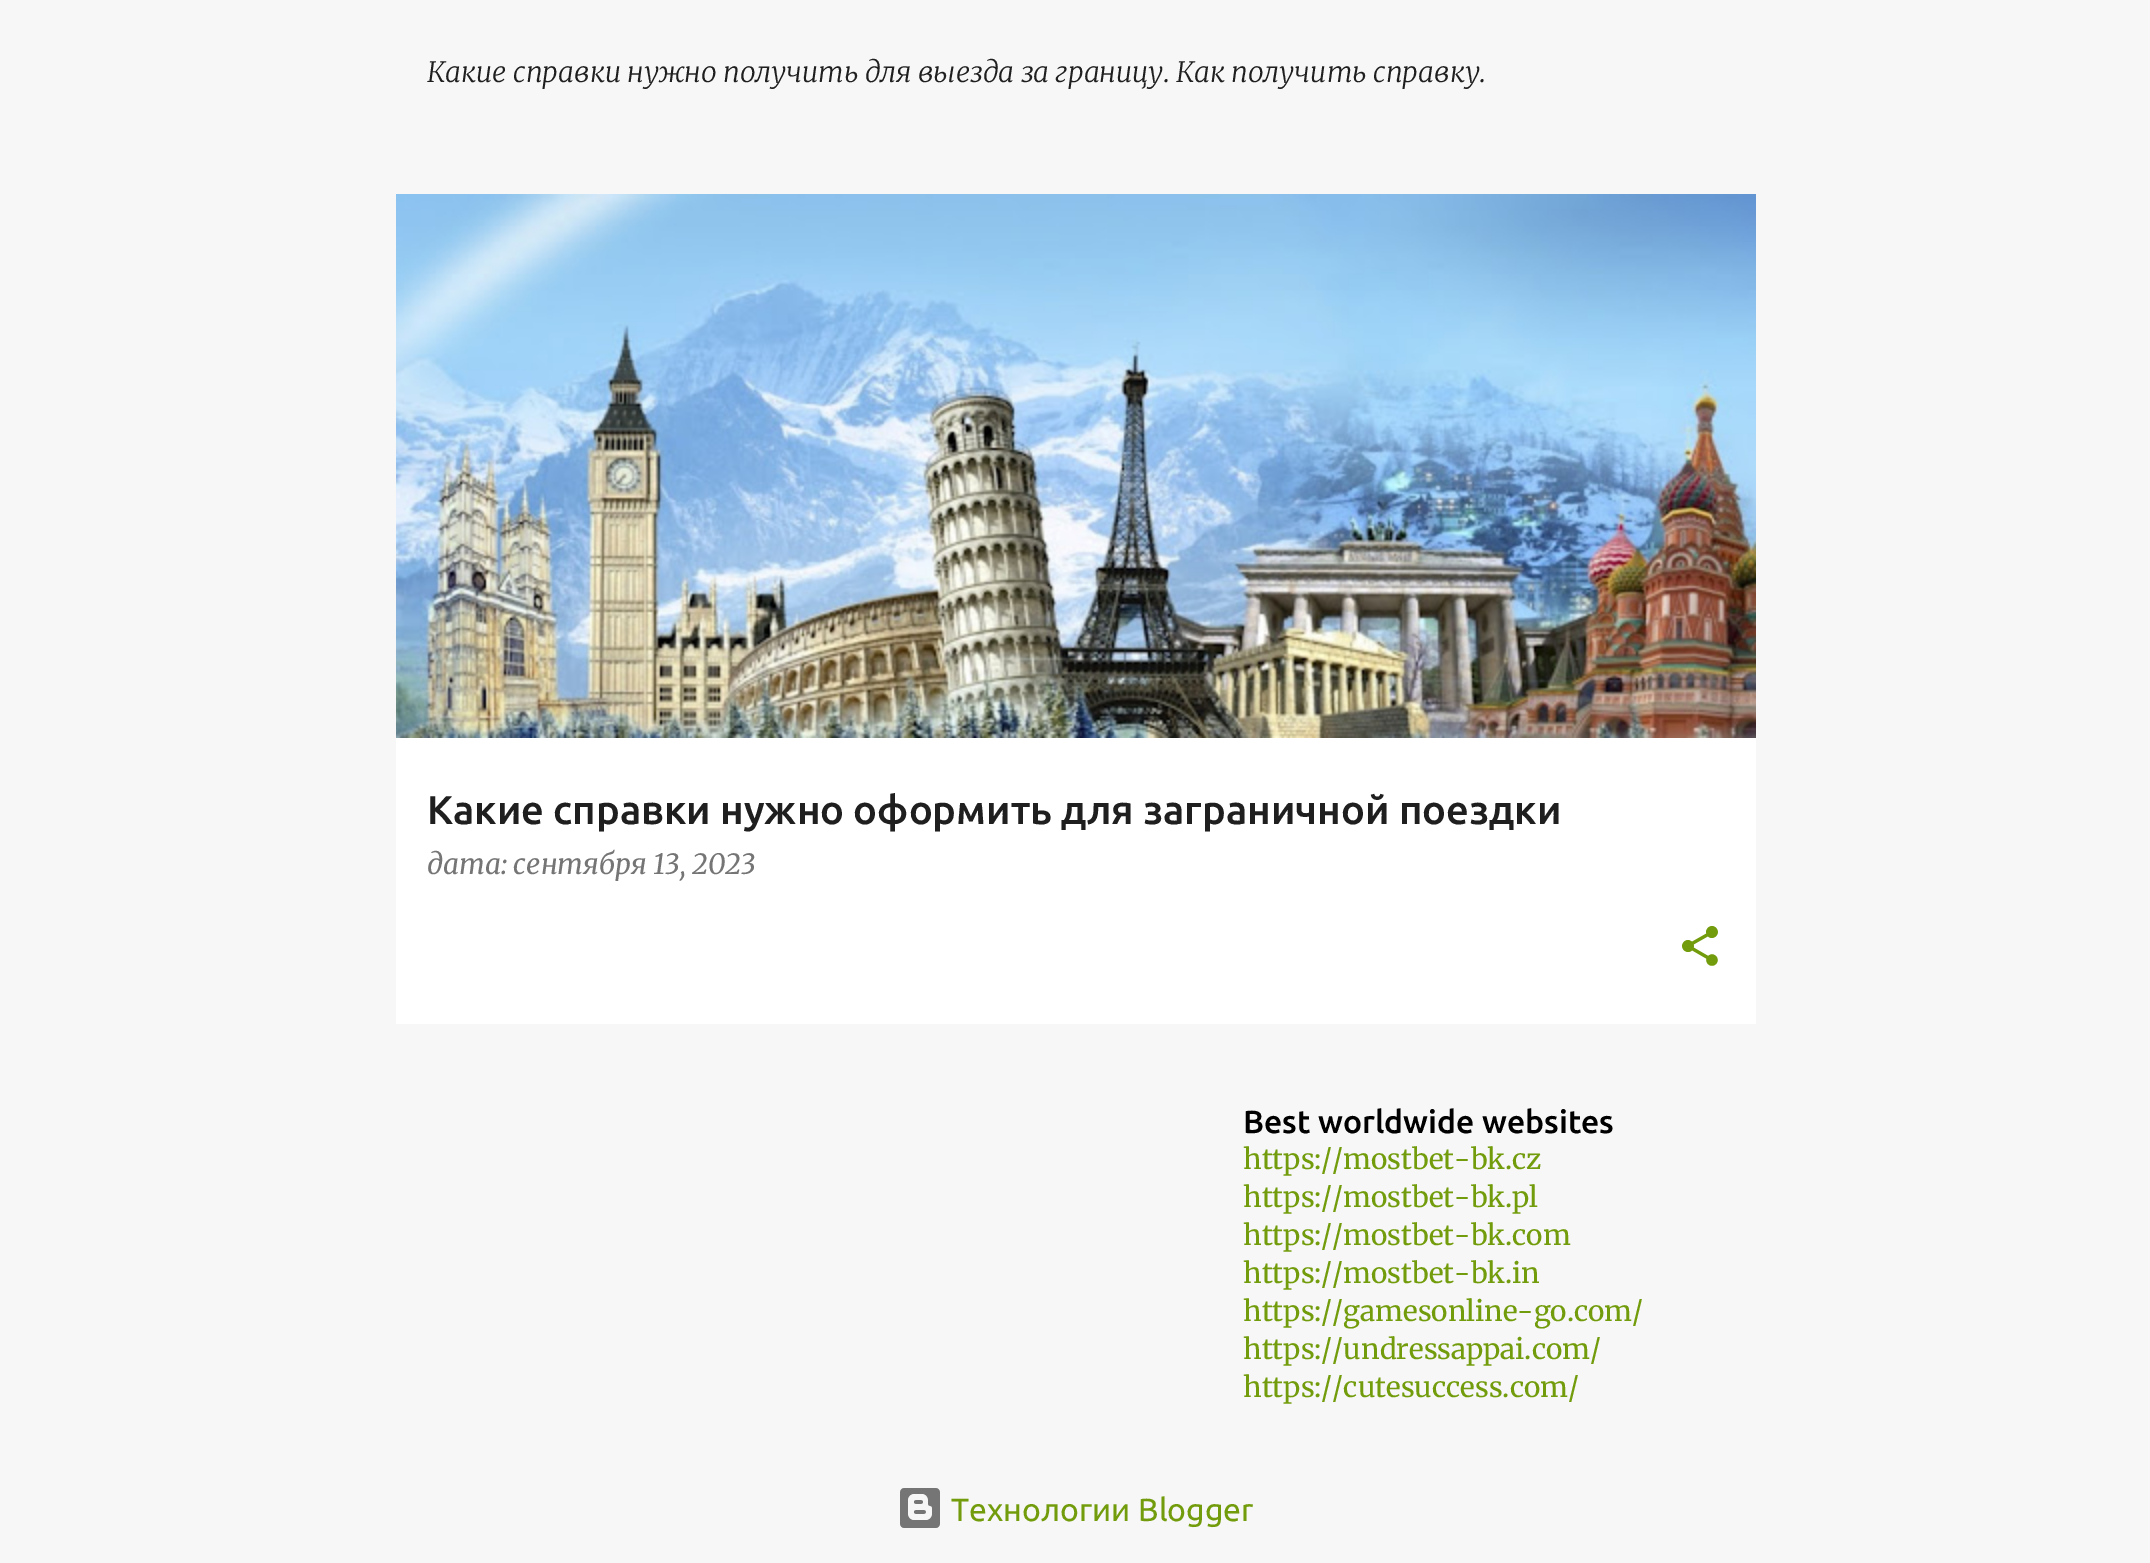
%!PS
<< /PageSize [2150 1563] >> setpagedevice
/C { dup -16 bitshift 255 div exch dup -8 bitshift 255 and 255 div exch 255 and 255 div setrgbcolor } def
/F { [ exch dup neg 0 0 3 -1 roll 0 0 ] selectfont } def
/T { moveto show } def
/R { rectfill } def
/I { 5 dict begin { /h /w /y /x /name } { exch def } forall
  gsave x y translate w h scale
  w h 8 [w 0 0 h 0 0] name (r) file false 3 colorimage grestore end } def
0 1563 translate 1 -1 scale
4 setmiterlimit
16#F7F7F7 C
0 0 2150 1563 R
/Merriweather-LightItalic 28 F
16#1F1F1F C
(Какие справки нужно получить для выезда за границу. Как получить справку.) 427 82 T
16#FFFFFF C
396 738 1360 286 R
(1.rgb) 396 194 1360 544 I
/Ubuntu-Medium 40 F
16#1F1F1F C
(Какие справки нужно оформить для заграничной поездки) 427 824 T
/Merriweather-Italic 28 F
16#757575 C
(дата: сентября 13, 2023) 427 874 T
(2.rgb) 1682 926 36 40 I
/Ubuntu-Medium 32 F
16#000000 C
(Best worldwide websites) 1243 1133 T
/Merriweather-Light 28 F
16#729C0B C
(https://mostbet-bk.cz) 1243 1169 T
(https://mostbet-bk.pl) 1243 1207 T
(https://mostbet-bk.com) 1243 1245 T
(https://mostbet-bk.in) 1243 1283 T
(https://gamesonline-go.com/) 1243 1321 T
(https://undressappai.com/) 1243 1359 T
(https://cutesuccess.com/) 1243 1397 T
(3.rgb) 900 1488 40 40 I
/Ubuntu-Regular 32 F
(Технологии Blogger) 951 1521 T
showpage
